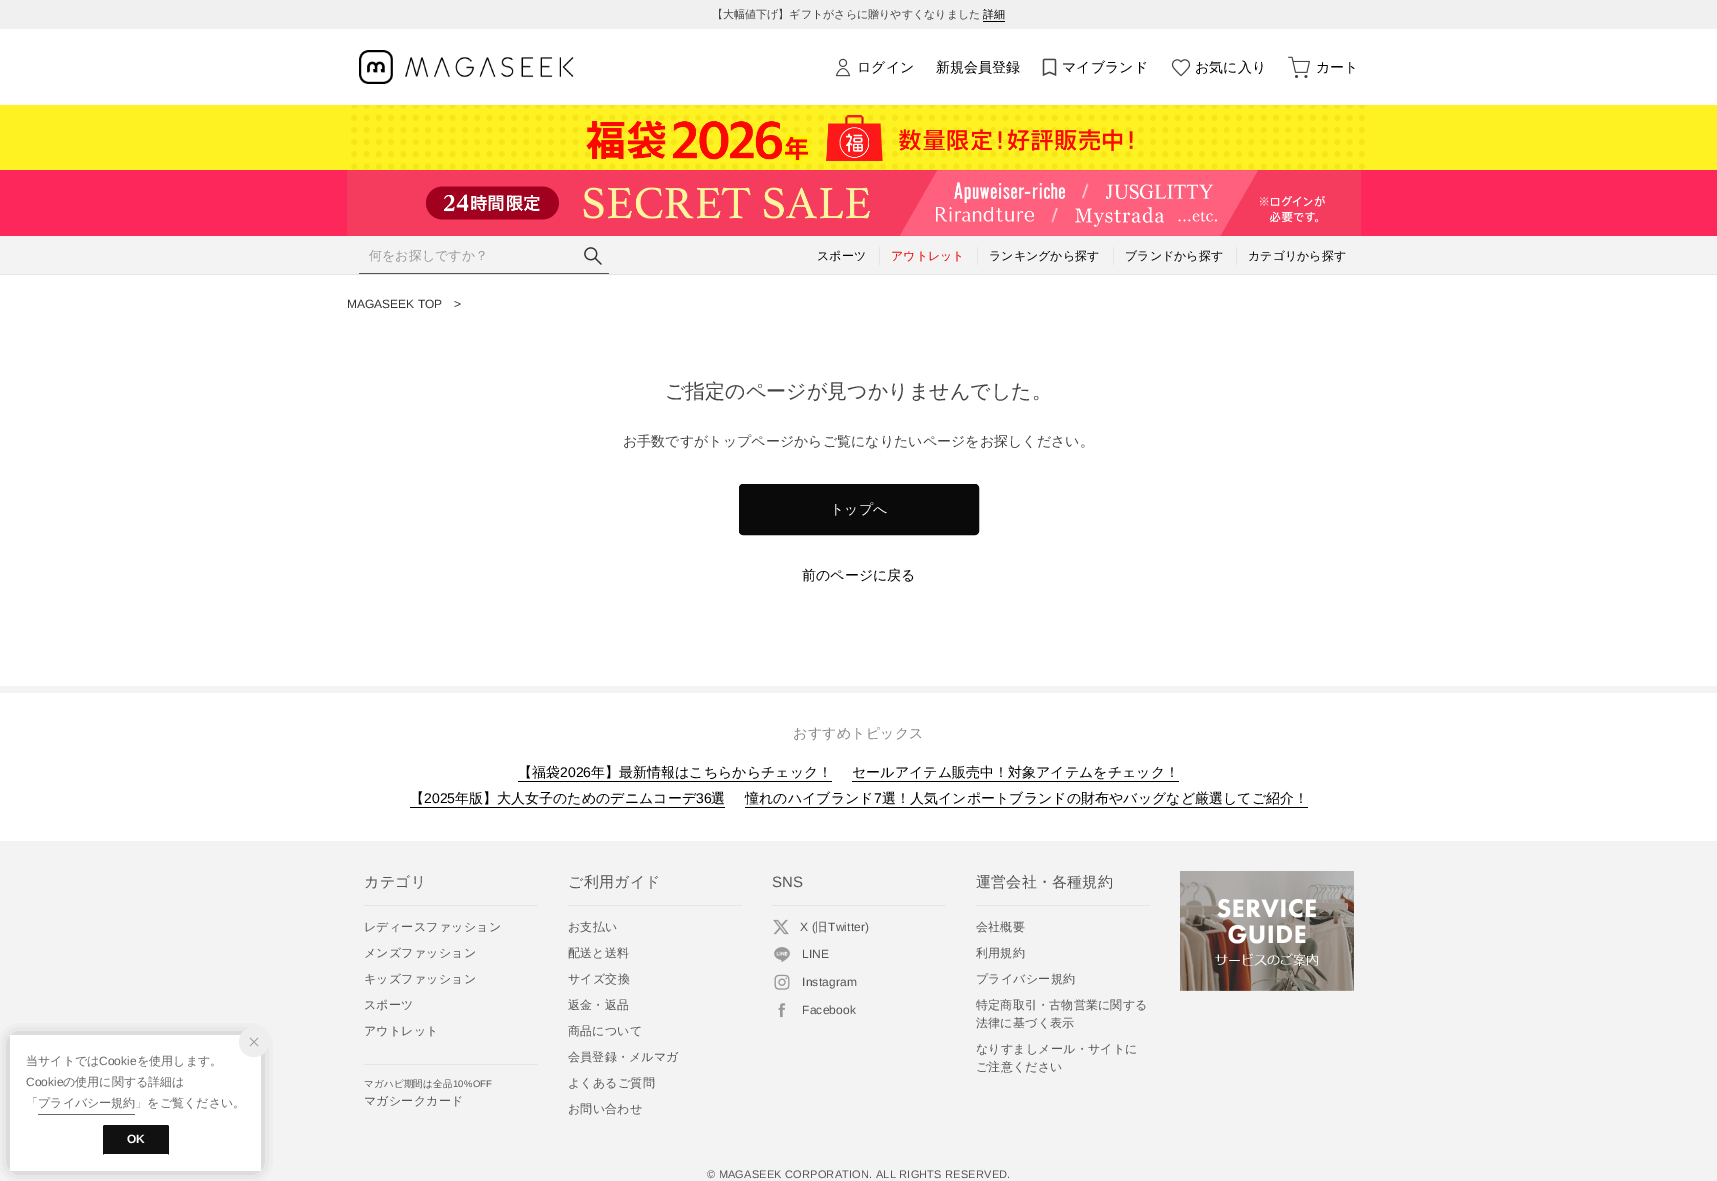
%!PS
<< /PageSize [1717 1181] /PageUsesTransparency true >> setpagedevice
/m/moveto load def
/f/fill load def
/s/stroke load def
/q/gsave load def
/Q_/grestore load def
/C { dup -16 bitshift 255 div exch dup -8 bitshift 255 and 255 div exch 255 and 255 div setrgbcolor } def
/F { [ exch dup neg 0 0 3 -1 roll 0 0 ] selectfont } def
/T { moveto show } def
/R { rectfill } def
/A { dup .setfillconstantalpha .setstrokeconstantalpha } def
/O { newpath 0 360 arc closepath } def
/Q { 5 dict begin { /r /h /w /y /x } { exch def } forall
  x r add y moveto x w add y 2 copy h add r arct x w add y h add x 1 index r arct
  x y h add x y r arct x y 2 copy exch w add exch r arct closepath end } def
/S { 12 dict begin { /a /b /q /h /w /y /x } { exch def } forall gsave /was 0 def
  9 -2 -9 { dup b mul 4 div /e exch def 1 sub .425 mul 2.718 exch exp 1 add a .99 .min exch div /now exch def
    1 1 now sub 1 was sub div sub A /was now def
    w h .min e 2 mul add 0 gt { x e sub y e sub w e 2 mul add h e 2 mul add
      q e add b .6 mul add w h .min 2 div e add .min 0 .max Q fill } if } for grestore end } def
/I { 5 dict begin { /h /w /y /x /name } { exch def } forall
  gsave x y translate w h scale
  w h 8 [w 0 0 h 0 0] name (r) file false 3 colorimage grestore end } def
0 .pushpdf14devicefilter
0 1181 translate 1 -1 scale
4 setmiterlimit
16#FFFFFF C
0 0 1717 1181 R
16#F0F0F0 C
0 0 1717 29 R
/WenQuanYiZenHei-Medium 11 F
16#444444 C
(【大幅値下げ】ギフトがさらに贈りやすくなりました) 712 18 T
16#000000 C
(詳細) 983 18 T
983 21 22 1 R
(1.rgb) 359 50 215 34 I
(2.rgb) 835 58 16 19 I
/WenQuanYiZenHei-Medium 14 F
(ログイン) 857 72 T
(新規会員登録) 936 72 T
(3.rgb) 1042 58 15 18 I
(マイブランド) 1062 72 T
(4.rgb) 1171 59 20 18 I
(お気に入り) 1195 72 T
(5.rgb) 1288 56 22 23 I
(カート) 1316 72 T
16#F4F4F4 C
0 236 1717 1 R
16#FFF222 C
0 105 1717 65 R
(6.rgb) 351 105 1014 65 I
16#FE275B C
0 170 1717 66 R
(7.rgb) 347 170 1014 66 I
16#F3F3F3 C
0 237 1717 37 R
16#E5E5E5 C
0 274 1717 1 R
/WenQuanYiZenHei-Medium 13 F
16#999999 C
(何をお探しですか？) 369 260 T
(8.rgb) 584 247 18 18 I
16#555555 C
359 273 250 1 R
/WenQuanYiZenHei-Medium 12 F
16#000000 C
(スポーツ) 817 260 T
16#E5E5E5 C
879 247 1 18 R
16#EE0000 C
(アウトレット) 891 260 T
16#E5E5E5 C
977 247 1 18 R
16#000000 C
(ランキングから探す) 989 260 T
16#E5E5E5 C
1113 247 1 18 R
16#000000 C
(ブランドから探す) 1125 260 T
16#E5E5E5 C
1236 247 1 18 R
16#000000 C
(カテゴリから探す) 1248 260 T
/LiberationSans-Regular 12 F
16#333333 C
(MAGASEEK TOP) 347 308 T
(>) 454 308 T
/WenQuanYiZenHei-Medium 20 F
16#444444 C
(ご指定のページが見つかりませんでした。) 665 398 T
/WenQuanYiZenHei-Medium 14 F
(お手数ですがトップページからご覧になりたいページをお探しください。) 623 446 T
16#0A0A0A C
739.5 484.5 239 50 3.5 Q q f Q_
s
16#FFFFFF C
(トップへ) 830 514 T
16#000000 C
(前のページに戻る) 802 580 T
16#F3F3F3 C
0 686 1717 7 R
16#888888 C
793 738 m .2 0 (おすすめトピックス) ashow
16#000000 C
(【福袋) 518 777 T
/LiberationSans-Regular 14 F
(2026) 560 777 T
518 781 314 1 R
/WenQuanYiZenHei-Medium 14 F
(年】最新情報はこちらからチェック！) 591 777 T
(セールアイテム販売中！対象アイテムをチェック！) 852 777 T
852 781 327 1 R
(【) 410 803 T
/LiberationSans-Regular 14 F
(2025) 424 803 T
410 807 315 1 R
/WenQuanYiZenHei-Medium 14 F
(年版】大人女子のためのデニムコーデ) 455 803 T
/LiberationSans-Regular 14 F
(36) 696 803 T
/WenQuanYiZenHei-Medium 14 F
(選) 711 803 T
(憧れのハイブランド) 745 803 T
/LiberationSans-Regular 14 F
(7) 874 803 T
/WenQuanYiZenHei-Medium 14 F
(選！人気インポートブランドの財布やバッグなど厳選してご紹介！) 882 803 T
745 807 563 1 R
16#F3F3F3 C
0 841 1717 340 R
16#000000 C
16 1041 239 124 0 8 .6 S
16#FFFFFF C
10 1035 251 136 R
16#EEEEEE C
254 1042 15 O f
(9.rgb) 249 1037 10 10 I
/WenQuanYiZenHei-Medium 12 F
16#666666 C
(当サイトでは) 26 1065 T
/LiberationSans-Regular 12 F
(Cookie) 99 1065 T
/WenQuanYiZenHei-Medium 12 F
(を使用します。) 137 1065 T
/LiberationSans-Regular 12 F
(Cookie) 26 1086 T
/WenQuanYiZenHei-Medium 12 F
(の使用に関する詳細は) 63 1086 T
(「プライバシー規約」をご覧ください。) 26 1107 T
38 1114 97 1 R
16#111111 C
103 1125 66 30 2 Q f
16#FFFFFF C
104 1154 64 1 R
/LiberationSans-Bold 12 F
(OK) 127 1143 T
16#E5E5E5 C
364 905 174 1 R
/WenQuanYiZenHei-Medium 15 F
16#555555 C
364 887 m .2 0 (カテゴリ) ashow
/WenQuanYiZenHei-Medium 12 F
364 931 m .2 0 (レディースファッション) ashow
364 957 m .2 0 (メンズファッション) ashow
364 983 m .2 0 (キッズファッション) ashow
364 1009 m .2 0 (スポーツ) ashow
364 1035 m .2 0 (アウトレット) ashow
16#E5E5E5 C
364 1064 174 1 R
/WenQuanYiZenHei-Medium 9.5 F
16#555555 C
364 1087 m .2 0 (マガハピ期間は全品) ashow
/LiberationSans-Regular 9.5 F
453 1087 m .2 0 (10%OFF) ashow
/WenQuanYiZenHei-Medium 12 F
364 1105 m .2 0 (マガシークカード) ashow
16#E5E5E5 C
568 905 174 1 R
/WenQuanYiZenHei-Medium 15 F
16#555555 C
568 887 m .2 0 (ご利用ガイド) ashow
/WenQuanYiZenHei-Medium 12 F
568 931 m .2 0 (お支払い) ashow
568 957 m .2 0 (配送と送料) ashow
568 983 m .2 0 (サイズ交換) ashow
568 1009 m .2 0 (返金・返品) ashow
568 1035 m .2 0 (商品について) ashow
568 1061 m .2 0 (会員登録・メルマガ) ashow
568 1087 m .2 0 (よくあるご質問) ashow
568 1113 m .2 0 (お問い合わせ) ashow
16#E5E5E5 C
772 905 174 1 R
/LiberationSans-Regular 15 F
16#555555 C
772 887 m .2 0 (SNS) ashow
(10.rgb) 773 919 16 16 I
/LiberationSans-Regular 12 F
800 931 m .2 0 (X \() ashow
/WenQuanYiZenHei-Medium 12 F
815 931 m .2 0 (旧) ashow
/LiberationSans-Regular 12 F
828 931 m .2 0 (Twitter\)) ashow
(11.rgb) 774 947 16 15 I
802 958 m .2 0 (LINE) ashow
(12.rgb) 774 974 16 16 I
802 986 m .2 0 (Instagram) ashow
(13.rgb) 778 1003 8 15 I
802 1014 m .2 0 (Facebook) ashow
16#E5E5E5 C
976 905 174 1 R
/WenQuanYiZenHei-Medium 15 F
16#555555 C
976 887 m .2 0 (運営会社・各種規約) ashow
/WenQuanYiZenHei-Medium 12 F
976 931 m .2 0 (会社概要) ashow
976 957 m .2 0 (利用規約) ashow
976 983 m .2 0 (プライバシー規約) ashow
976 1009 m .2 0 (特定商取引・古物営業に関する) ashow
976 1027 m .2 0 (法律に基づく表示) ashow
976 1053 m .2 0 (なりすましメール・サイトに) ashow
976 1071 m .2 0 (ご注意ください) ashow
(14.rgb) 1180 871 174 120 I
/LiberationSans-Regular 11 F
707 1178 m .2 0 (© MAGASEEK CORPORATION. ALL RIGHTS RESERVED.) ashow
.poppdf14devicefilter showpage
